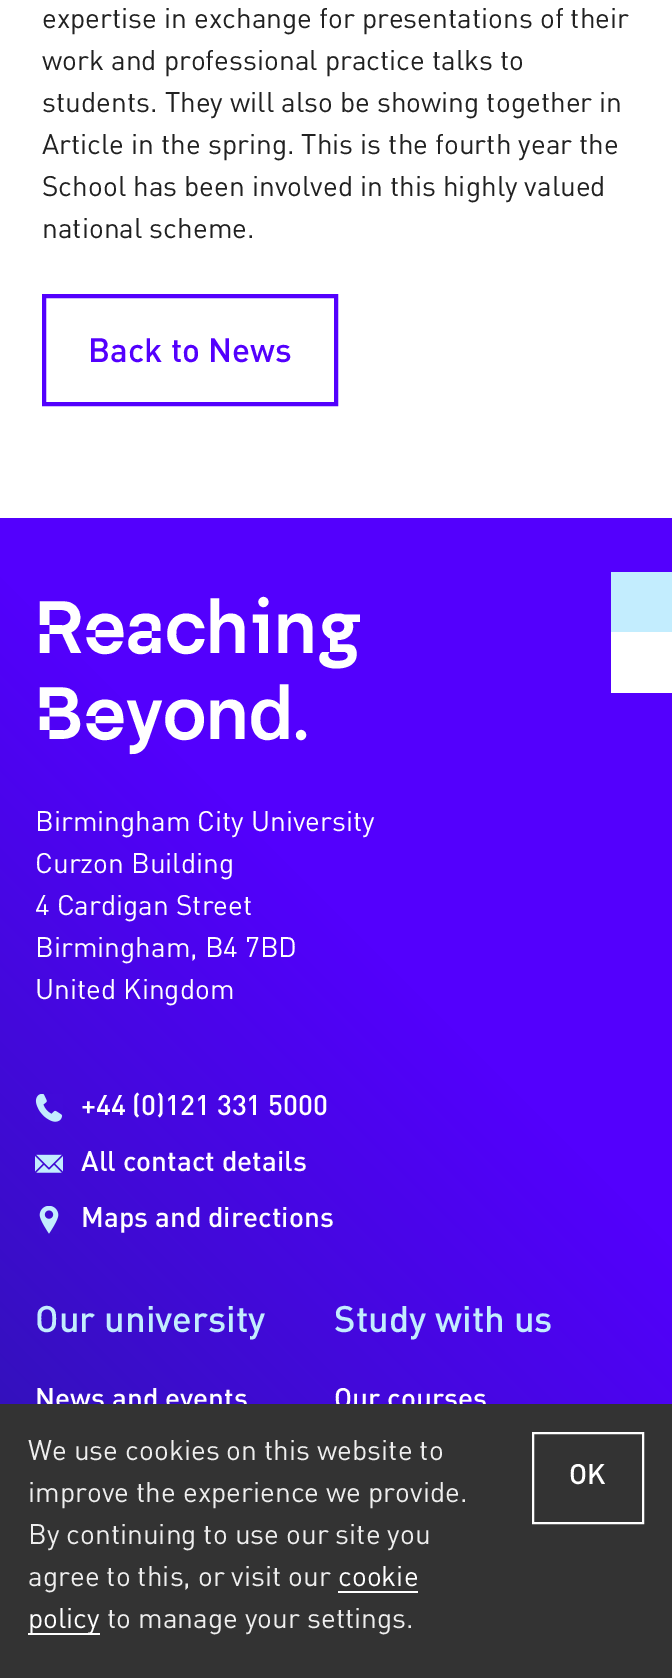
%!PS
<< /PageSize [672 1678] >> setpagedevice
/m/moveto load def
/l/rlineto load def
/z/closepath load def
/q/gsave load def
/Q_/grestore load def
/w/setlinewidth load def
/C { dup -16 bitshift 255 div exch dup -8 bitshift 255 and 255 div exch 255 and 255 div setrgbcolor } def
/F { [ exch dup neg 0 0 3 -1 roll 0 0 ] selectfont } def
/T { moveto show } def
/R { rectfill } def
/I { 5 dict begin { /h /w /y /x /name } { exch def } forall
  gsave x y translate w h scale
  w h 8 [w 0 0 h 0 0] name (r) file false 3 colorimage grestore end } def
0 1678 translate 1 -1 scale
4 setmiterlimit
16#FFFFFF C
0 0 672 1678 R
/DIN-Regular 28 F
16#212121 C
(expertise in exchange for presentations of their) 42 28 T
(work and professional practice talks to) 42 70 T
(students. They will also be showing together in) 42 112 T
(Article in the spring. This is the fourth year the) 42 154 T
(School has been involved in this highly valued) 42 196 T
(national scheme.) 42 238 T
16#5300FD C
4 w
44 296 292 108 rectstroke
/DIN-Medium 33.5 F
(Back to News) 88 362 T
q 0 518 m 672 0 l 0 886 l -672 0 l z clip newpath
<< /ShadingType 2 /ColorSpace /DeviceRGB /Coords [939 785 -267 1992] /Extend [true true] /Function << /FunctionType 3 /Domain [0 1] /Functions [<< /FunctionType 2 /Domain [0 1] /C0 [.325 0 .992] /C1 [.325 0 .992] /N 1 >> << /FunctionType 2 /Domain [0 1] /C0 [.325 0 .992] /C1 [.082 .137 .486] /N 1 >>] /Bounds [.3] /Encode [0 1 0 1] >> >> shfill Q_
/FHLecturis-Bold 74 F
16#FFFFFF C
(Reaching) 35 653 T
(Beyond.) 35 739 T
/DIN-Regular 28 F
(Birmingham City University) 35 831 T
(Curzon Building) 35 873 T
(4 Cardigan Street) 35 915 T
(Birmingham, B4 7BD) 35 957 T
(United Kingdom) 35 999 T
(1.rgb) 35 1094 28 28 I
/DIN-Medium 28 F
(+44 \(0\)121 331 5000) 81 1115 T
(2.rgb) 35 1154 28 19 I
(All contact details) 81 1171 T
(3.rgb) 39 1206 20 28 I
(Maps and directions) 81 1227 T
/DIN-Medium 36.5 F
16#C3EDFE C
(Our university) 35 1332 T
/DIN-Medium 28 F
16#FFFFFF C
(News and events) 35 1408 T
/DIN-Medium 36.5 F
16#C3EDFE C
(Study with us) 334 1332 T
/DIN-Medium 28 F
16#FFFFFF C
(Our courses) 334 1408 T
16#C3EDFE C
611 572 61 60 R
16#FFFFFF C
611 632 61 61 R
16#333333 C
0 1404 672 274 R
/DIN-Regular 28 F
16#EEEEEE C
(We use cookies on this website to) 28 1460 T
(improve the experience we provide.) 28 1502 T
(By continuing to use our site you) 28 1544 T
(agree to this, or visit our) 28 1586 T
16#FFFFFF C
(cookie) 338 1586 T
338 1591 80 2 R
28 1633 72 2 R
(policy) 28 1628 T
16#EEEEEE C
(to manage your settings.) 107 1628 T
16#FFFFFF C
2 w
533 1433 110 90 rectstroke
/DIN-Medium 28 F
(OK) 569 1484 T
showpage
